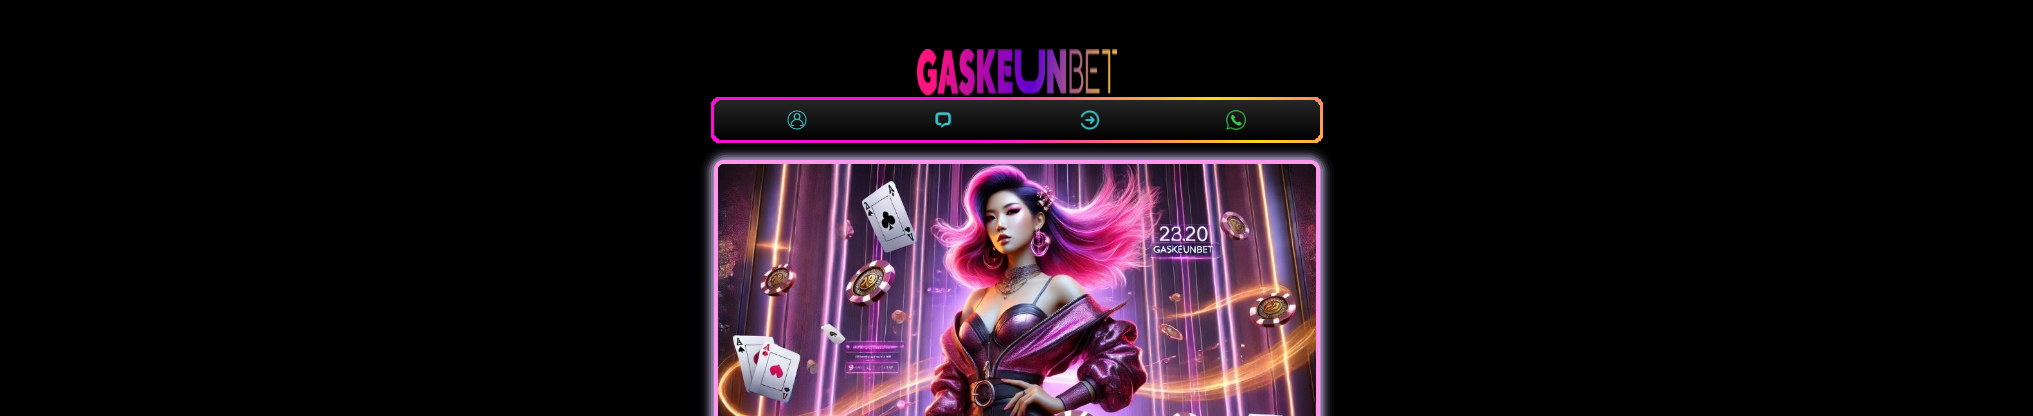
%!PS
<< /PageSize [2033 416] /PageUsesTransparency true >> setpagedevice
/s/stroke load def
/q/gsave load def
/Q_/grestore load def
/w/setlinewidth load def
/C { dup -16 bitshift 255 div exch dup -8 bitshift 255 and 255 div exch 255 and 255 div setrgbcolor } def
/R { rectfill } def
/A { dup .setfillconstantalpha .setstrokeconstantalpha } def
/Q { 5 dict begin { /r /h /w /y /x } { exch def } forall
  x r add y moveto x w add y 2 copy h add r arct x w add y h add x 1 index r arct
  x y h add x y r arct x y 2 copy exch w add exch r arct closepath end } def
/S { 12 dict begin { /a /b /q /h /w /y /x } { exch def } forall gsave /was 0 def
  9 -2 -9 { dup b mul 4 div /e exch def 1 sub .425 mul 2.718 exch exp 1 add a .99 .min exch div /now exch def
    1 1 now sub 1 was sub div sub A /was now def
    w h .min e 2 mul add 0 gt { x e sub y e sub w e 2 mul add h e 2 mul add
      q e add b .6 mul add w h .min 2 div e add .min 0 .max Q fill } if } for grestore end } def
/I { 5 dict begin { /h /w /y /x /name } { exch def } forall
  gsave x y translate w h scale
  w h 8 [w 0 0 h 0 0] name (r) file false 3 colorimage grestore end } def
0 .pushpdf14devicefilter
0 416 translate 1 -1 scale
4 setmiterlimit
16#000000 C
0 0 2033 416 R
(1.rgb) 917 49 200 46 I
q 711 97 612 46 10 Q clip newpath
<< /ShadingType 2 /ColorSpace /DeviceRGB /Coords [1312 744 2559 -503] /Extend [true true] /Function << /FunctionType 3 /Domain [0 1] /Functions [<< /FunctionType 2 /Domain [0 1] /C0 [1 .055 .839] /C1 [1 .055 .839] /N 1 >> << /FunctionType 2 /Domain [0 1] /C0 [1 .055 .839] /C1 [1 .859 .078] /N 1 >> << /FunctionType 2 /Domain [0 1] /C0 [1 .859 .078] /C1 [1 .055 .839] /N 1 >> << /FunctionType 2 /Domain [0 1] /C0 [1 .055 .839] /C1 [1 .055 .839] /N 1 >> << /FunctionType 2 /Domain [0 1] /C0 [1 .055 .839] /C1 [.808 .78 .804] /N 1 >>] /Bounds [.11 .22 .33 .89] /Encode [0 1 0 1 0 1 0 1 0 1] >> >> shfill Q_
q 714 100 606 40 10 Q clip newpath
<< /ShadingType 2 /ColorSpace /DeviceRGB /Coords [1017 140 1017 100] /Extend [true true] /Function << /FunctionType 2 /Domain [0 1] /C0 [0 0 0] /C1 [.153 .153 .153] /N 1 >> >> shfill Q_
(2.rgb) 787 110 20 20 I
(3.rgb) 935 111 17 17 I
(4.rgb) 1080 110 20 20 I
(5.rgb) 1226 110 20 20 I
16#B8AAD7 C
710 156 614 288 14 4.5 1 S
16#FF96ED C
4 w
716 162 602 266 8 Q s
(6.rgb) 718 164 598 252 I
.poppdf14devicefilter showpage
